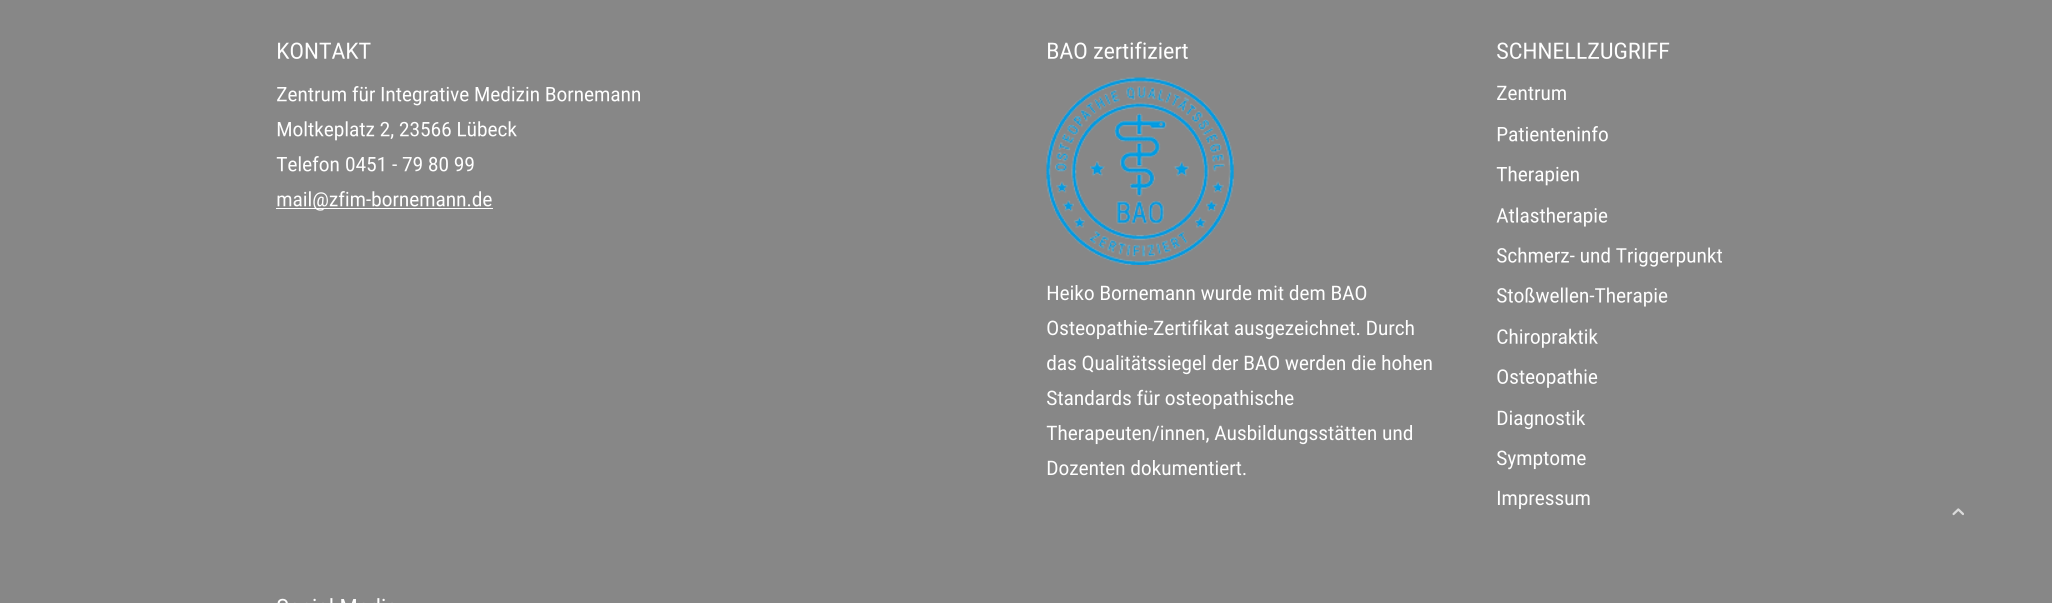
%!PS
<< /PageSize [2052 603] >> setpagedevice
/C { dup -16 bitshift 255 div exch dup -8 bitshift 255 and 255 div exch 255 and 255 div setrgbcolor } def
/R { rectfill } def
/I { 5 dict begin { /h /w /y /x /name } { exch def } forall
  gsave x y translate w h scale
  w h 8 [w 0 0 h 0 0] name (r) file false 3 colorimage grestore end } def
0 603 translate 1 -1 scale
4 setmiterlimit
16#878787 C
0 0 2052 603 R
(1.rgb) 278 42 93 17 I
(2.rgb) 277 86 363 20 I
(3.rgb) 277 121 240 20 I
(4.rgb) 276 156 63 16 I
(5.rgb) 346 156 128 16 I
16#FFFFFF C
276 208 217 1 R
(6.rgb) 277 191 215 20 I
(7.rgb) 277 598 116 5 I
(8.rgb) 1048 41 140 18 I
(9.rgb) 1046 77 188 188 I
(10.rgb) 1047 285 320 16 I
(11.rgb) 1047 319 367 21 I
(12.rgb) 1047 355 385 20 I
(13.rgb) 1047 389 247 21 I
(14.rgb) 1046 425 366 20 I
(15.rgb) 1047 460 199 16 I
(16.rgb) 1497 42 173 17 I
(17.rgb) 1497 85 69 16 I
(18.rgb) 1497 126 111 16 I
(19.rgb) 1496 166 83 20 I
(20.rgb) 1496 207 112 20 I
(21.rgb) 1497 247 225 20 I
(22.rgb) 1497 287 171 20 I
(23.rgb) 1497 328 101 20 I
(24.rgb) 1497 368 101 20 I
(25.rgb) 1497 410 89 20 I
(26.rgb) 1497 450 89 20 I
(27.rgb) 1497 490 93 20 I
(28.rgb) 1952 508 12 8 I
showpage
